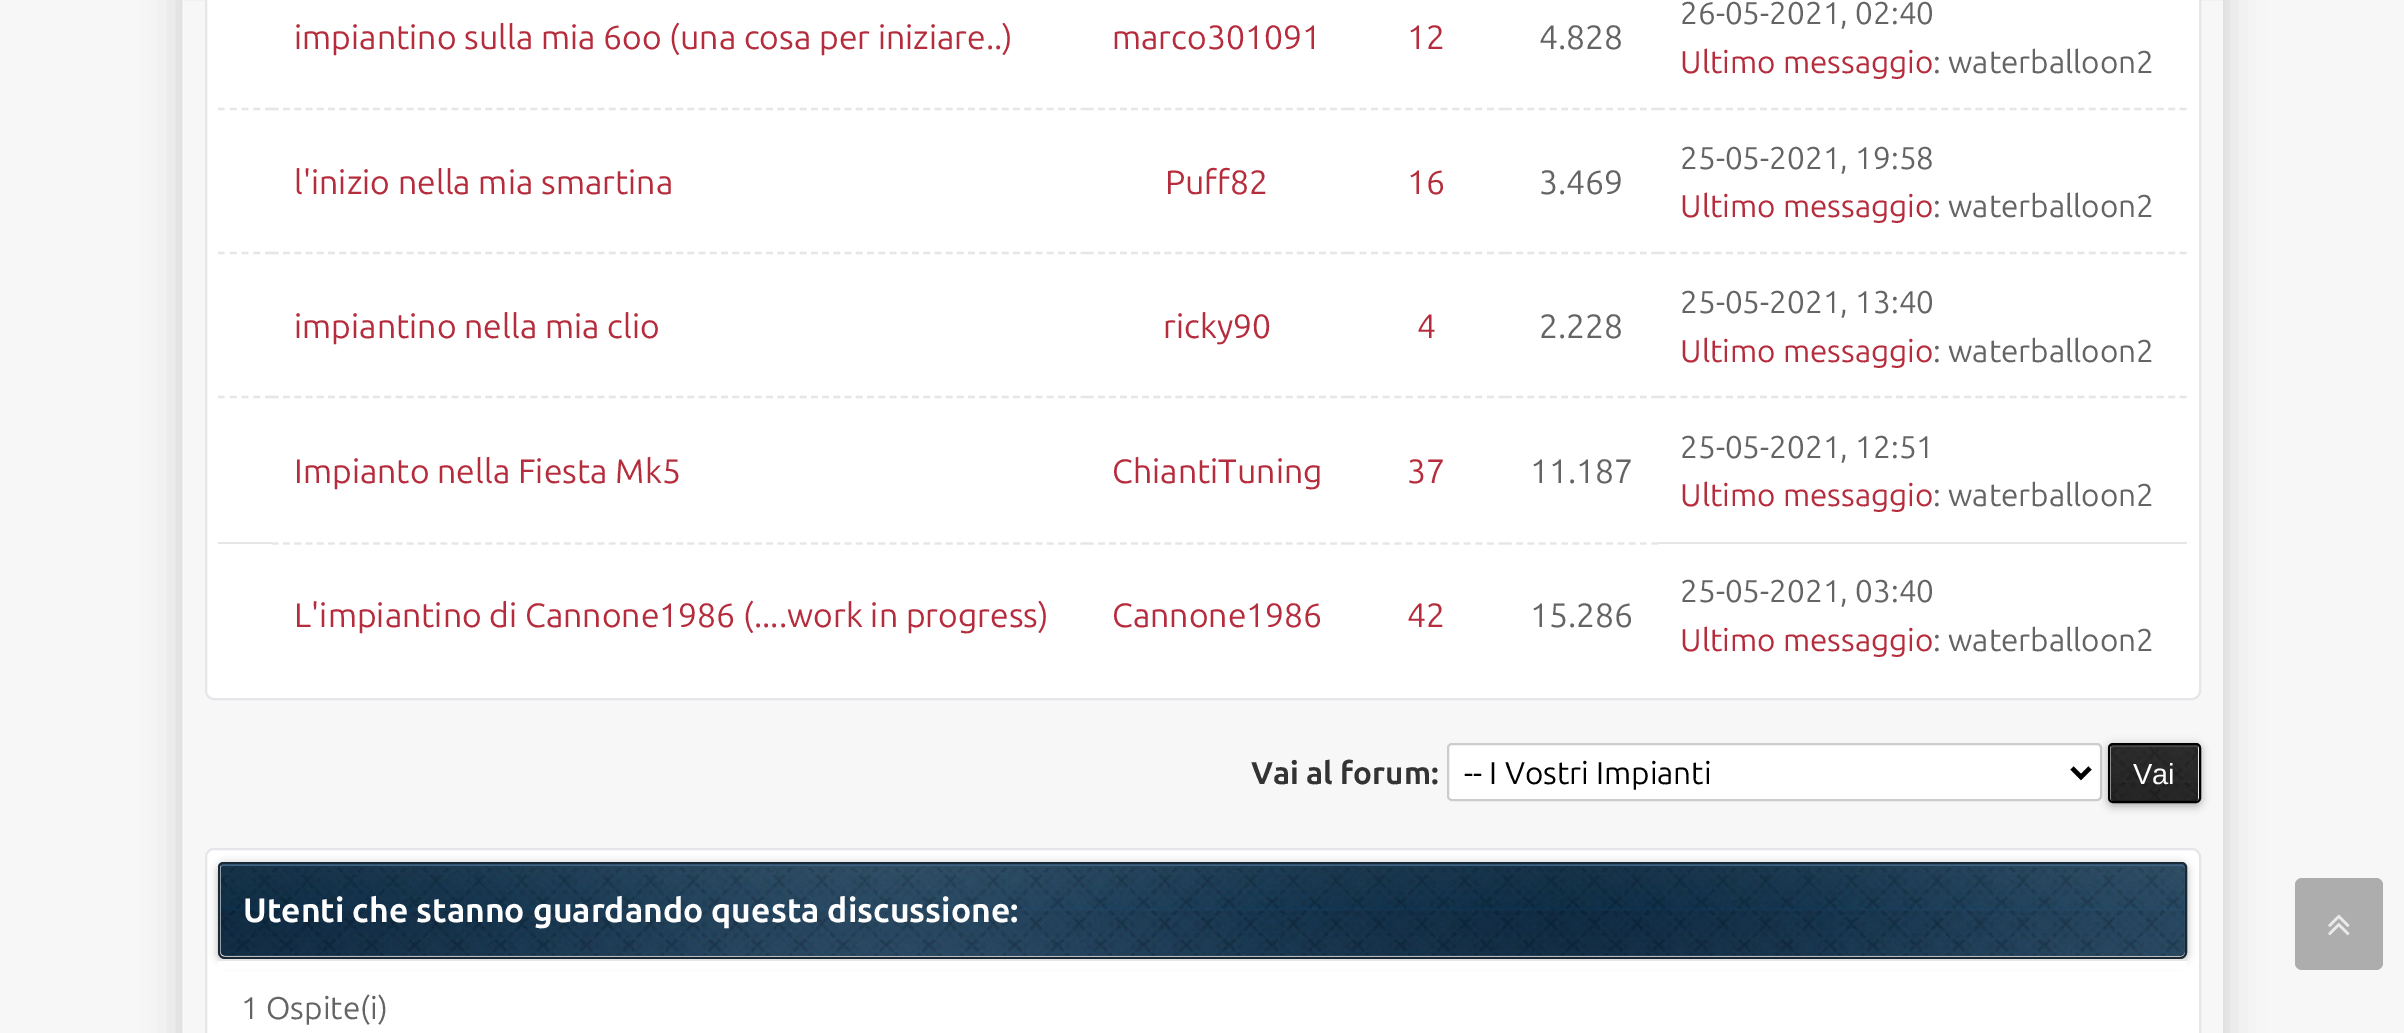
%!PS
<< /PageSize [2404 1033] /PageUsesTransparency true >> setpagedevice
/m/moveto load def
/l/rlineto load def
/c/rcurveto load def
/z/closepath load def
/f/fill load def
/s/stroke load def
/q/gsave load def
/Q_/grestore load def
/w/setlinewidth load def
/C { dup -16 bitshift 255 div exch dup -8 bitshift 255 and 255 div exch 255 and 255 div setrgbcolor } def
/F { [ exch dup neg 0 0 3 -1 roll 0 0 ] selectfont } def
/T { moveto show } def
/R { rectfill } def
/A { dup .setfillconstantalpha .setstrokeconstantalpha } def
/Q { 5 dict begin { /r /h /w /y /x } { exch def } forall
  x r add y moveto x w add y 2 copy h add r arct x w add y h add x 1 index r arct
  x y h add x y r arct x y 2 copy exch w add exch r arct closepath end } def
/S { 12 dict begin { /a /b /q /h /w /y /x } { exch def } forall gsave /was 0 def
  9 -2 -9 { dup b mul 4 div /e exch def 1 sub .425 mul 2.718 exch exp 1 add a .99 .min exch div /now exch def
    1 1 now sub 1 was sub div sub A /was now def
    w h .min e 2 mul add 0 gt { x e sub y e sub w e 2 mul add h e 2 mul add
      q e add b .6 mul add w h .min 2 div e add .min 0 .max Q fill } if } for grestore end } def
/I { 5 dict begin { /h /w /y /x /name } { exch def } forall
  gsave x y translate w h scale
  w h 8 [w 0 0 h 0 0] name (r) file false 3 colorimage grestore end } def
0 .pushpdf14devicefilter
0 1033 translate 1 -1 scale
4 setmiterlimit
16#F7F7F7 C
0 0 2404 1033 R
q
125 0 m 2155 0 l 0 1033 l -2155 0 l z 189 -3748 m 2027 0 l 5 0 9 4 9 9 c 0 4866 l 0 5 -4 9 -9 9 c -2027 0 l -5 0 -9 -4 -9 -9 c 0 -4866 l 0 -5 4 -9 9 -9 c z eoclip newpath
16#000000 C
180 -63 2045 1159 9 18 .15 S
Q_
16#E1E1E1 C
2 w
181 -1 2043 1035 rectstroke
16#FFFFFF C
206 -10 1994 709 8 Q q f Q_
16#E4E6E9 C
s
/Ubuntu-Regular 33.75 F
16#B52D3D C
(impiantino sulla mia 6oo \(una cosa per iniziare..\)) 294 49 T
(marco301091) 1112 49 T
(12) 1407 49 T
16#646464 C
(4.828) 1539 49 T
/Ubuntu-Regular 31.5 F
(26-05-2021, 02:40) 1680 24 T
16#B52D3D C
(Ultimo messaggio) 1680 73 T
16#646464 C
(: waterballoon2) 1933 73 T
16#E7E6E6 C
2.2 w
[6.75 5.06] 0 setdash
218 109 m 54 0 l s
[6.75 4.48] 0 setdash
272 109 m 815 0 l s
/Ubuntu-Regular 33.75 F
16#B52D3D C
(l'inizio nella mia smartina) 294 194 T
16#E7E6E6 C
[6.75 4.3] 0 setdash
1087 109 m 261 0 l s
16#B52D3D C
(Puff82) 1165 194 T
16#E7E6E6 C
[6.75 4.84] 0 setdash
1348 109 m 157 0 l s
16#B52D3D C
(16) 1407 194 T
16#E7E6E6 C
[6.75 4.5] 0 setdash
1505 109 m 153 0 l s
16#646464 C
(3.469) 1539 194 T
16#E7E6E6 C
[6.75 4.59] 0 setdash
1658 109 m 529 0 l s
/Ubuntu-Regular 31.5 F
16#646464 C
(25-05-2021, 19:58) 1680 169 T
16#B52D3D C
(Ultimo messaggio) 1680 217 T
16#646464 C
(: waterballoon2) 1933 217 T
16#E7E6E6 C
[6.75 5.06] 0 setdash
218 253 m 54 0 l s
[6.75 4.48] 0 setdash
272 253 m 815 0 l s
/Ubuntu-Regular 33.75 F
16#B52D3D C
(impiantino nella mia clio) 294 338 T
16#E7E6E6 C
[6.75 4.3] 0 setdash
1087 253 m 261 0 l s
16#B52D3D C
(ricky90) 1163 338 T
16#E7E6E6 C
[6.75 4.84] 0 setdash
1348 253 m 157 0 l s
16#B52D3D C
(4) 1417 338 T
16#E7E6E6 C
[6.75 4.5] 0 setdash
1505 253 m 153 0 l s
16#646464 C
(2.228) 1539 338 T
16#E7E6E6 C
[6.75 4.59] 0 setdash
1658 253 m 529 0 l s
/Ubuntu-Regular 31.5 F
16#646464 C
(25-05-2021, 13:40) 1680 313 T
16#B52D3D C
(Ultimo messaggio) 1680 362 T
16#646464 C
(: waterballoon2) 1933 362 T
16#E7E6E6 C
[6.75 5.06] 0 setdash
218 397 m 54 0 l s
[6.75 4.48] 0 setdash
272 397 m 815 0 l s
/Ubuntu-Regular 33.75 F
16#B52D3D C
(Impianto nella Fiesta Mk5) 294 483 T
16#E7E6E6 C
[6.75 4.3] 0 setdash
1087 397 m 261 0 l s
16#B52D3D C
(ChiantiTuning) 1112 483 T
16#E7E6E6 C
[6.75 4.84] 0 setdash
1348 397 m 157 0 l s
16#B52D3D C
(37) 1407 483 T
16#E7E6E6 C
[6.75 4.5] 0 setdash
1505 397 m 153 0 l s
16#646464 C
(11.187) 1530 483 T
16#E7E6E6 C
[6.75 4.59] 0 setdash
1658 397 m 529 0 l s
/Ubuntu-Regular 31.5 F
16#646464 C
(25-05-2021, 12:51) 1680 458 T
16#B52D3D C
(Ultimo messaggio) 1680 506 T
16#646464 C
(: waterballoon2) 1933 506 T
16#E7E6E6 C
218 542 54 2 R
[6.75 4.48] 0 setdash
272 543.5 m 815 0 l s
/Ubuntu-Regular 33.75 F
16#B52D3D C
(L'impiantino di Cannone1986 \(....work in progress\)) 294 627 T
16#E7E6E6 C
[6.75 4.3] 0 setdash
1087 543.5 m 261 0 l s
16#B52D3D C
(Cannone1986) 1112 627 T
16#E7E6E6 C
[6.75 4.84] 0 setdash
1348 543.5 m 157 0 l s
16#B52D3D C
(42) 1407 627 T
16#E7E6E6 C
[6.75 4.5] 0 setdash
1505 543.5 m 153 0 l s
16#646464 C
(15.286) 1530 627 T
16#E7E6E6 C
1658 542 529 2 R
/Ubuntu-Regular 31.5 F
16#646464 C
(25-05-2021, 03:40) 1680 602 T
16#B52D3D C
(Ultimo messaggio) 1680 651 T
16#646464 C
(: waterballoon2) 1933 651 T
/Ubuntu-Bold 31.5 F
16#333333 C
(Vai al forum:) 1251 784 T
16#FFFFFF C
1448 744 653 56 4 Q q f Q_
16#CCCCCC C
2 w
[] 0 setdash
s
16#000000 C
4.5 w
2072 768 m 9 9 l 9 -9 l s
/Ubuntu-Regular 31.5 F
(-- I Vostri Impianti) 1464 784 T
2108 745 93 61 5 4.5 .3 S
16#161617 C
2111 745 87 56 2 Q f
(1.rgb) 2110 745 89 56 I
0.13 A
16#FFFFFF C
2113 747 m 83 0 l 1 0 2 1 2 2 c 0 -2 l 0 -1 -1 -2 -2 -2 c -83 0 l -1 0 -2 1 -2 2 c 0 1 l z f
1 A
16#000000 C
2 w
2109 744 91 58 4 Q s
/LiberationSans-Regular 29 F
16#FFFFFF C
(Vai) 2133 784 T
206 849 1994 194 8 Q q f Q_
16#E4E6E9 C
s
16#000000 C
218 864 1969 97 7 4.5 .3 S
16#324E66 C
223 864 m 1960 0 l 1 0 2 1 2 2 c 0 85 l 0 3 -2 5 -5 5 c -1954 0 l -3 0 -5 -2 -5 -5 c 0 -85 l 0 -1 1 -2 2 -2 c z f
(2.rgb) 220 864 1965 92 I
16#3D6485 C
223 866 m 1959 0 l 2 0 3 1 3 2 c 0 -2 l 0 -1 -1 -2 -2 -2 c -1960 0 l -1 0 -2 1 -2 2 c 0 1 l z f
16#1A2936 C
223 863 m 1959 0 l 2 0 4 2 4 4 c 0 85 l 0 3.5 -2.5 6 -6 6 c -1955 0 l -3.5 0 -6 -2.5 -6 -6 c 0 -85 l 0 -2 2 -4 4 -4 c z s
/Ubuntu-Bold 33.75 F
16#FFFFFF C
(Utenti che stanno guardando questa discussione:) 243 922 T
218 961 1969 8 R
16#E7E6E6 C
218 959 1969 2 R
/Ubuntu-Regular 31.5 F
16#646464 C
(1 Ospite\(i\)) 241 1019 T
16#ADADAD C
2295 878 88 92 7 Q f
(3.rgb) 2328 914 22 22 I
.poppdf14devicefilter showpage
